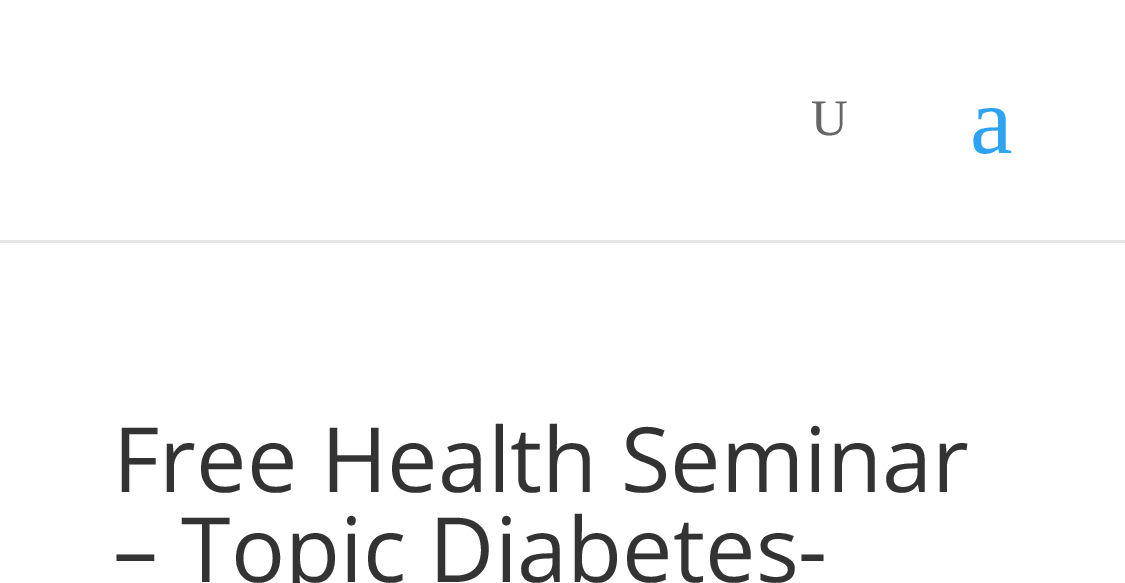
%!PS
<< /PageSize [1125 583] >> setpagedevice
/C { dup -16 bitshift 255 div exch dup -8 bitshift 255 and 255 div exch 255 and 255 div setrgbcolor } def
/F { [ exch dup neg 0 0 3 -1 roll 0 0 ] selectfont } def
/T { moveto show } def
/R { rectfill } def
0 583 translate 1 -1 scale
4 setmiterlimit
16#FFFFFF C
0 0 1125 583 R
16#E6E6E6 C
0 240 1125 3 R
/LiberationSerif-Regular 51 F
16#666666 C
(U) 811 135 T
/LiberationSerif-Regular 96 F
16#2EA3F2 C
(a) 970 153 T
/OpenSans-Regular 90 F
16#333333 C
(Free Health Seminar) 113 492 T
(– Topic Diabetes-) 113 582 T
showpage
